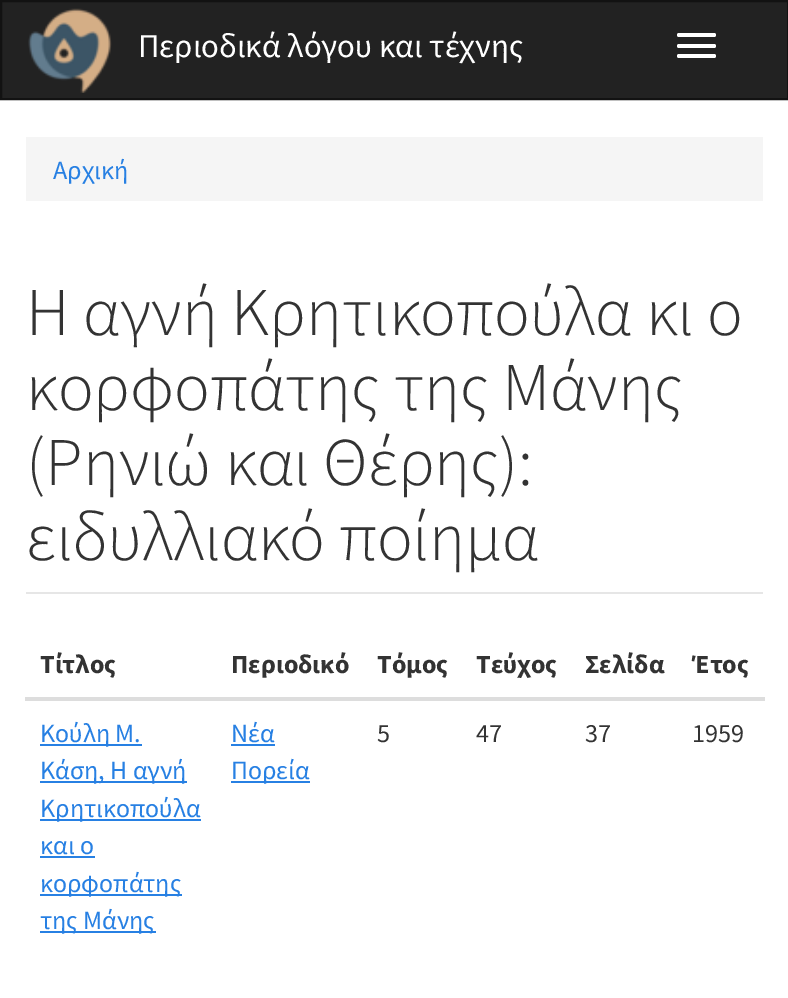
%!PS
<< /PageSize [788 998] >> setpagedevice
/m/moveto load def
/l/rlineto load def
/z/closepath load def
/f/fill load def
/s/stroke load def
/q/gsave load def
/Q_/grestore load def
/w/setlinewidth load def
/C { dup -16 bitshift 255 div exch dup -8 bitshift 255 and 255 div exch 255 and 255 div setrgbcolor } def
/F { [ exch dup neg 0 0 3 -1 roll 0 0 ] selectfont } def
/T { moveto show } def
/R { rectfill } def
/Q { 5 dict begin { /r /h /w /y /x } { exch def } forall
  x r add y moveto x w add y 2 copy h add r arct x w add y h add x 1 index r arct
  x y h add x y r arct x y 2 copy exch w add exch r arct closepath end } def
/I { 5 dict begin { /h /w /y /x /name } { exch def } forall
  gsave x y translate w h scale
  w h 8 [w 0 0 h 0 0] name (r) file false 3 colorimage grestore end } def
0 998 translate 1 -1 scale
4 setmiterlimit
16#FFFFFF C
0 0 788 998 R
16#222222 C
1 1 m 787 0 l 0 98 l -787 0 l z q f Q_
16#121212 C
2 w
s
(1.rgb) 28 8 84 85 I
/SourceSansPro-Regular 33.25 F
16#FFFFFF C
(Περιοδικά λόγου και τέχνης) 138 57 T
677 33 39 4 2 Q f
677 44 39 4 2 Q f
677 54 39 4 2 Q f
16#F5F5F5 C
26 137 737 64 R
/SourceSansPro-Regular 26.25 F
16#2780E3 C
(Αρχική) 53 179 T
16#E6E6E6 C
26 592 737 2 R
/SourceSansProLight-Light 68.25 F
16#333333 C
(Η αγνή Κρητικοπούλα κι ο) 26 335 T
(κορφοπάτης της Μάνης) 26 410 T
(\(Ρηνιώ και Θέρης\):) 26 485 T
(ειδυλλιακό ποίημα) 26 560 T
/SourceSansPro-Bold 26.25 F
(Τίτλος) 40 673 T
(Περιοδικό) 231 673 T
(Τόμος) 377 673 T
(Τεύχος) 476 673 T
(Σελίδα) 585 673 T
16#DDDDDD C
25 697 740 4 R
16#333333 C
(Έτος) 692 673 T
16#2780E3 C
40 744 102 2 R
/SourceSansPro-Regular 26.25 F
(Κούλη Μ.) 40 742 T
40 781 147 2 R
(Κάση, Η αγνή) 40 779 T
40 819 161 2 R
(Κρητικοπούλα) 40 817 T
(και ο) 40 854 T
40 856 55 2 R
40 894 142 2 R
(κορφοπάτης) 40 892 T
40 931 116 2 R
(της Μάνης) 40 929 T
(Νέα) 231 742 T
231 744 44 2 R
231 781 79 2 R
(Πορεία) 231 779 T
16#333333 C
(5) 377 742 T
(47) 476 742 T
(37) 585 742 T
(1959) 692 742 T
showpage
